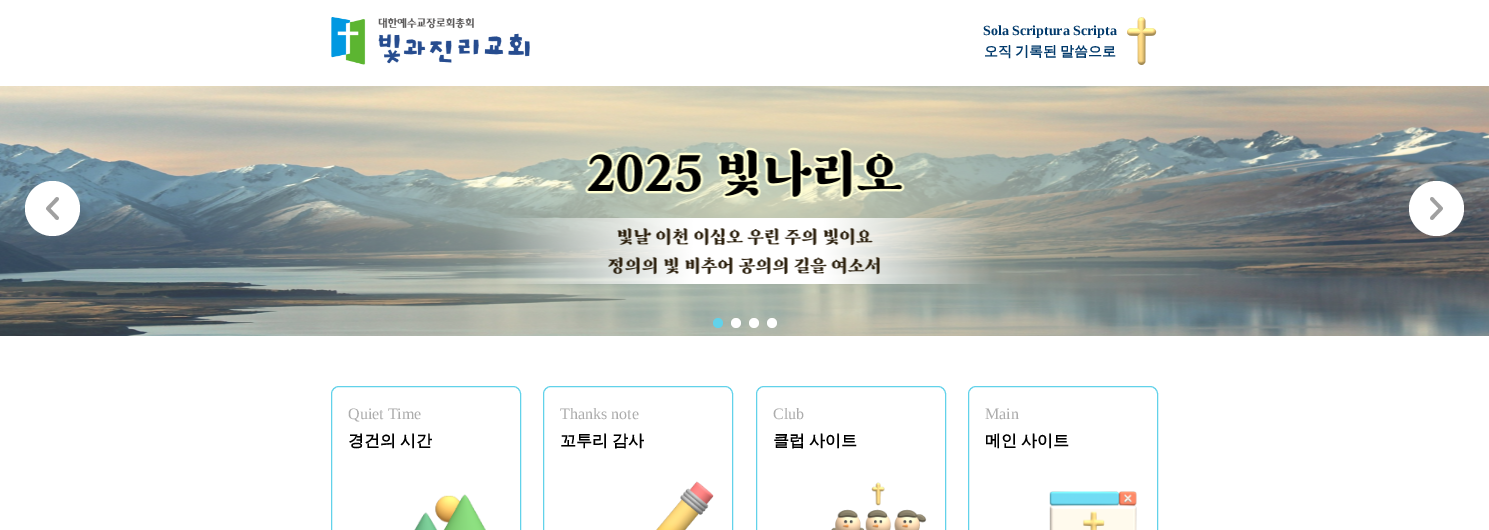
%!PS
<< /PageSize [1489 530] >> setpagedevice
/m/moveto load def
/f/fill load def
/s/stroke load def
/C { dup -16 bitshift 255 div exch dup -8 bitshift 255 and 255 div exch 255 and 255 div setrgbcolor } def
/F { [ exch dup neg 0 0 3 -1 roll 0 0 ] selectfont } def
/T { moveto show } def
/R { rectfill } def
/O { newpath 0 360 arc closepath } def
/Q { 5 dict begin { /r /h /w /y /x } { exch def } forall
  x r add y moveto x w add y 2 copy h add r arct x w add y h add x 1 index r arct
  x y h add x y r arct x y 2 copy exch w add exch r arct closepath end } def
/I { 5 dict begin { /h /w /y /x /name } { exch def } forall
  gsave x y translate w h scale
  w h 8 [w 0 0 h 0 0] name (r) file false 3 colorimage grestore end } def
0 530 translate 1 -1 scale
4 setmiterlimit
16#FFFFFF C
0 0 1489 530 R
(1.rgb) 331 17 199 48 I
/LiberationSerif-Bold 14 F
16#00396B C
(Sola Scriptura Scripta) 983 35 T
/WenQuanYiZenHei-Bold 14 F
984 56 m -1 0 32 (오직 기록된 말씀으로) widthshow
(2.rgb) 1127 17 30 48 I
(3.rgb) 0 86 1489 250 I
16#FFFFFF C
52.5 208.5 27.5 O f
(4.rgb) 46 197 13 23 I
1436.5 208.5 27.5 O f
(5.rgb) 1430 197 13 23 I
16#62D2EA C
718 323 5 O f
16#FFFFFF C
736 323 5 O f
754 323 5 O f
772 323 5 O f
16#62D2EA C
331.5 386.5 189 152 7.5 Q s
/LiberationSerif-Regular 16 F
16#ACACAC C
(Quiet Time) 348 419 T
/WenQuanYiZenHei-Bold 16 F
16#000000 C
348 446 m -1 0 32 (경건의 시간) widthshow
(6.rgb) 414 494 72 36 I
16#62D2EA C
543.5 386.5 189 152 7.5 Q s
/LiberationSerif-Regular 16 F
16#ACACAC C
(Thanks note) 560 419 T
/WenQuanYiZenHei-Bold 16 F
16#000000 C
560 446 m -1 0 32 (꼬투리 감사) widthshow
(7.rgb) 656 481 58 49 I
16#62D2EA C
756.5 386.5 189 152 7.5 Q s
/LiberationSerif-Regular 16 F
16#ACACAC C
(Club) 773 419 T
/WenQuanYiZenHei-Bold 16 F
16#000000 C
773 446 m -1 0 32 (클럽 사이트) widthshow
(8.rgb) 831 482 96 48 I
16#62D2EA C
968.5 386.5 189 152 7.5 Q s
/LiberationSerif-Regular 16 F
16#ACACAC C
(Main) 985 419 T
/WenQuanYiZenHei-Bold 16 F
16#000000 C
985 446 m -1 0 32 (메인 사이트) widthshow
(9.rgb) 1049 491 88 39 I
showpage
